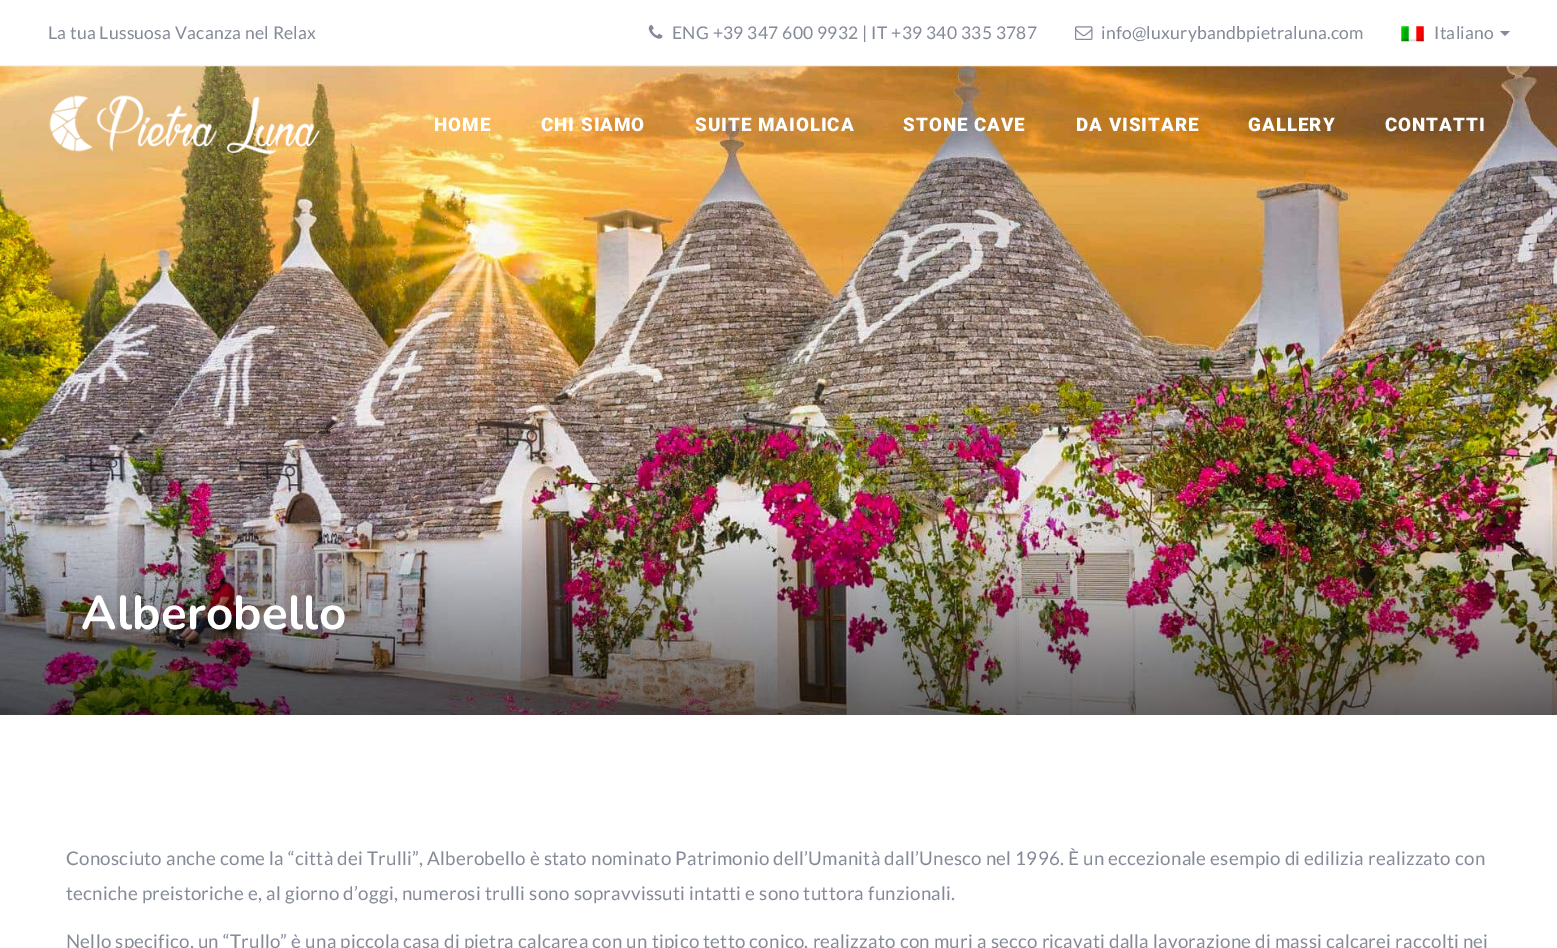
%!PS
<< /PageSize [1557 948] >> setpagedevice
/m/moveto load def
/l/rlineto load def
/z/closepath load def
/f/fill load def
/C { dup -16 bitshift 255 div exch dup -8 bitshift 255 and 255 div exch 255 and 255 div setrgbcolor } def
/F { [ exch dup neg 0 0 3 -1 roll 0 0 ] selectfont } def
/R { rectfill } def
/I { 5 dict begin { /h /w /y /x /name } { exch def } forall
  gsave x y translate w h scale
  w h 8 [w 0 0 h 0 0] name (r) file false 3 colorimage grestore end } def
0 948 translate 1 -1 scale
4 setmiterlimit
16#FFFFFF C
0 0 1557 948 R
16#F2F2F2 C
0 65 1557 1 R
/Lato-Regular 17.5 F
16#858A99 C
48 39 m .25 0 (La tua Lussuosa Vacanza nel Relax) ashow
(1.rgb) 648 25 15 14 I
672 39 m .25 0 (ENG +39 347 600 9932 | IT +39 340 335 3787) ashow
(2.rgb) 1075 26 18 14 I
1101 39 m .25 0 (info@luxurybandbpietraluna.com) ashow
(3.rgb) 1401 26 23 16 I
1434 39 m .25 0 (Italiano) ashow
1500 31 m 10 0 l -5 5 l z f
(5.rgb) 0 66 1557 649 I
(4.rgb) 49 95 271 60 I
/Roboto-Black 18.75 F
16#FFFFFF C
434 131 m 1 0 (HOME) ashow
541 131 m 1 0 (CHI SIAMO) ashow
695 131 m 1 0 (SUITE MAIOLICA) ashow
903 131 m 1 0 (STONE CAVE) ashow
1076 131 m 1 0 (DA VISITARE) ashow
1248 131 m 1 0 (GALLERY) ashow
1385 131 m 1 0 (CONTATTI) ashow
/Nunito-Bold 47.5 F
81 629 m .25 0 (Alberobello) ashow
/Lato-Regular 18.75 F
16#858A99 C
66 865 m .25 0 (Conosciuto anche come la “città dei Trulli”, Alberobello è stato nominato Patrimonio dell’Umanità dall’Unesco nel 1996. È un eccezionale esempio di edilizia realizzato con) ashow
66 900 m .25 0 (tecniche preistoriche e, al giorno d’oggi, numerosi trulli sono sopravvissuti intatti e sono tuttora funzionali.) ashow
66 948 m .25 0 (Nello specifico, un “Trullo” è una piccola casa di pietra calcarea con un tipico tetto conico, realizzato con muri a secco ricavati dalla lavorazione di massi calcarei raccolti nei) ashow
showpage
